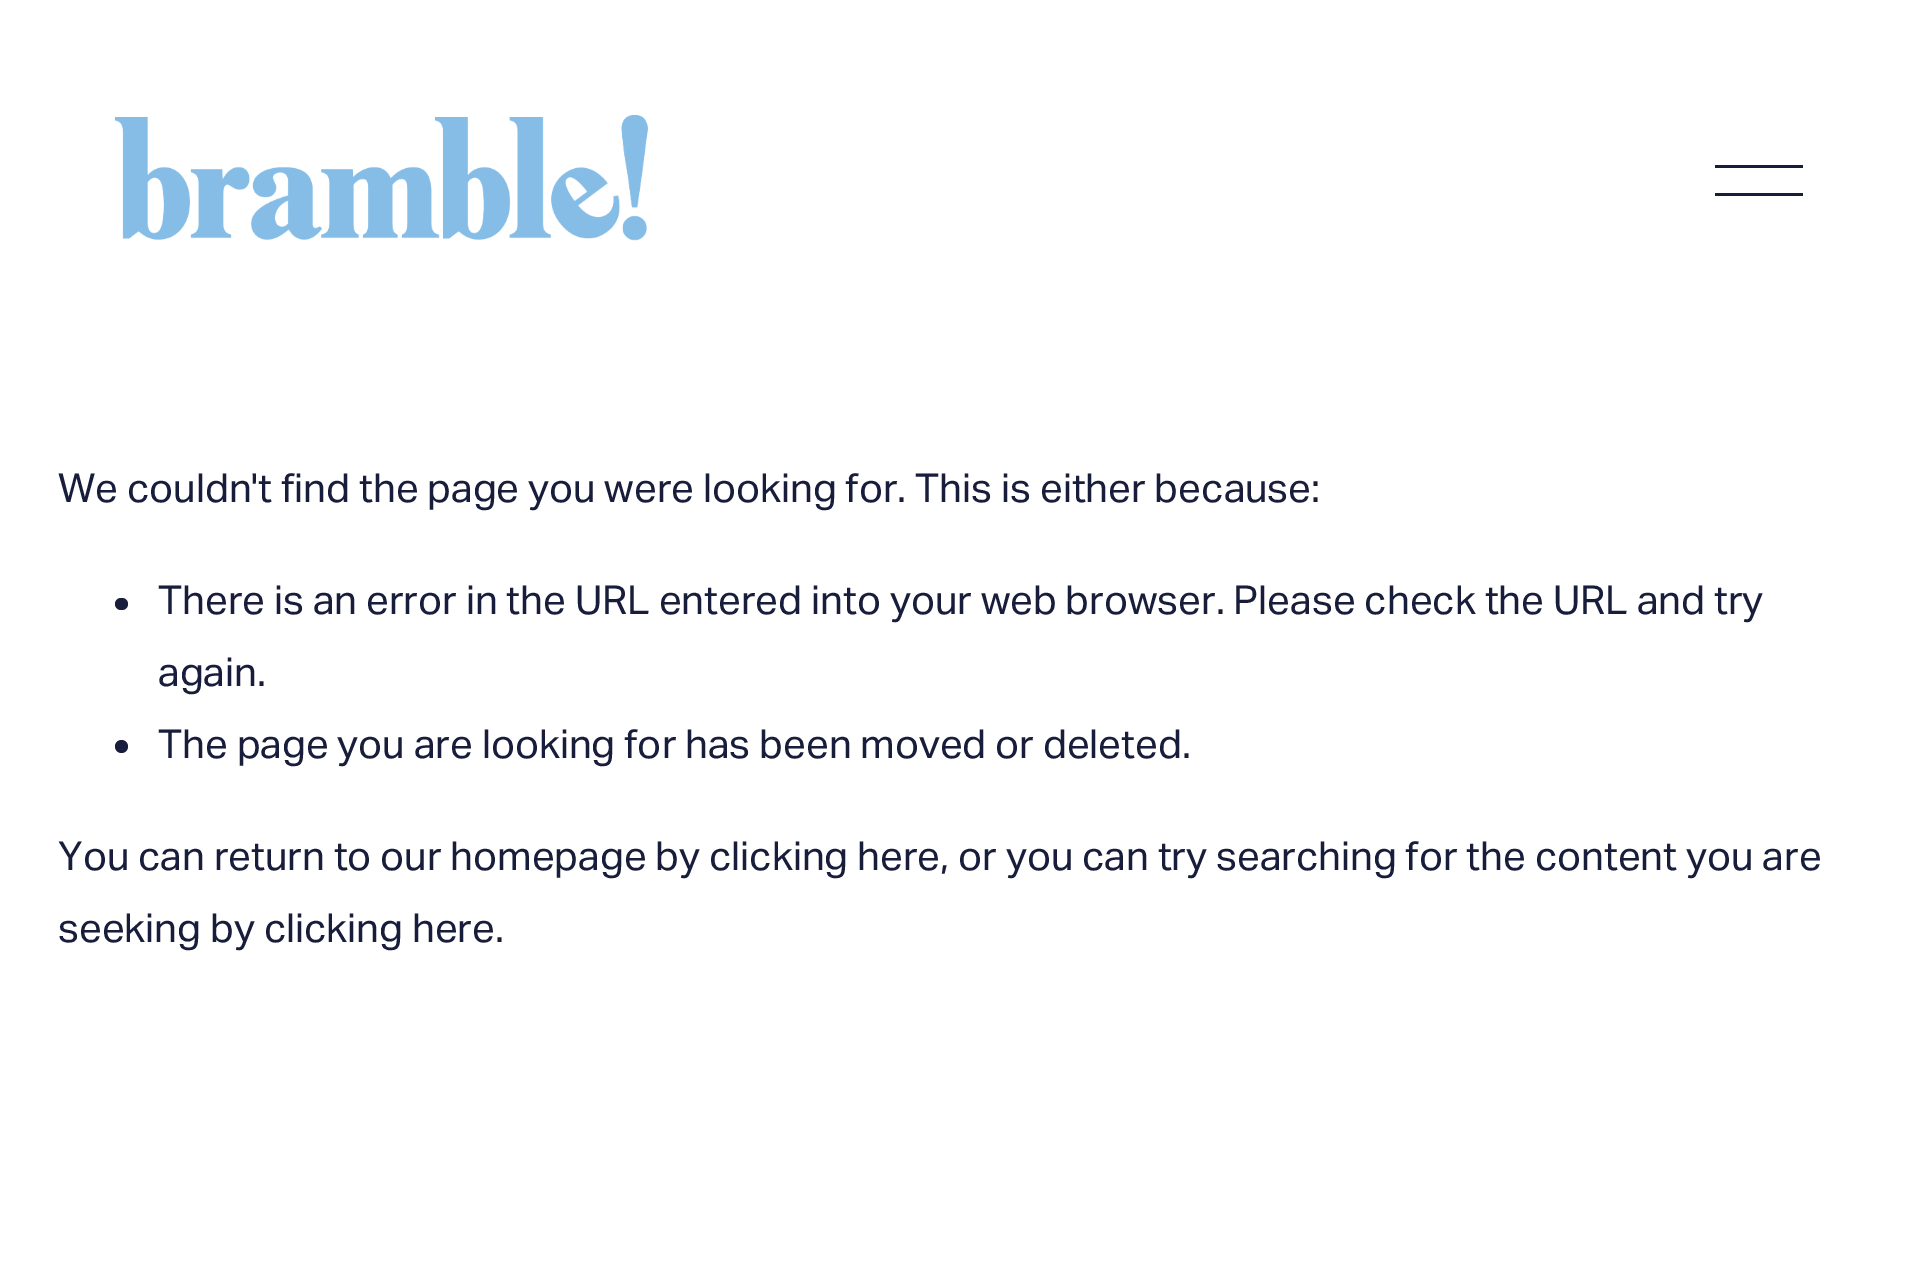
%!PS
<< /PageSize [1931 1268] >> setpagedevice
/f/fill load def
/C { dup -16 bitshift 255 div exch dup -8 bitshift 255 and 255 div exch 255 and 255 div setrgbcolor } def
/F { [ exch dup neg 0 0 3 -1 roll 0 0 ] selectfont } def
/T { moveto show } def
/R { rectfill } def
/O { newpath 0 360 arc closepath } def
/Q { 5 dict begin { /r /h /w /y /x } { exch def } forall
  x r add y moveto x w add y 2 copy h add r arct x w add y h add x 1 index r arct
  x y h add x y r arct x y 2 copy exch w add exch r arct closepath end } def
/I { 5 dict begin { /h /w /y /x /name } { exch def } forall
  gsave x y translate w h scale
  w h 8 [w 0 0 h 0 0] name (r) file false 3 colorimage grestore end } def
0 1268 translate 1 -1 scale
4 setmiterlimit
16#FFFFFF C
0 0 1931 1268 R
(1.rgb) 115 115 533 126 I
16#171D3A C
1715 165 88 3 R
1715 193 88 3 R
/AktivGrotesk-Regular 40 F
(We couldn't find the page you were looking for. This is either because:) 58 502 T
115 598 13 12 6 Q f
(There is an error in the URL entered into your web browser. Please check the URL and try) 158 614 T
(again.) 158 686 T
121.5 746.5 6.5 O f
(The page you are looking for has been moved or deleted.) 158 758 T
(You can return to our homepage by clicking here, or you can try searching for the content you are) 58 870 T
(seeking by clicking here.) 58 942 T
showpage
